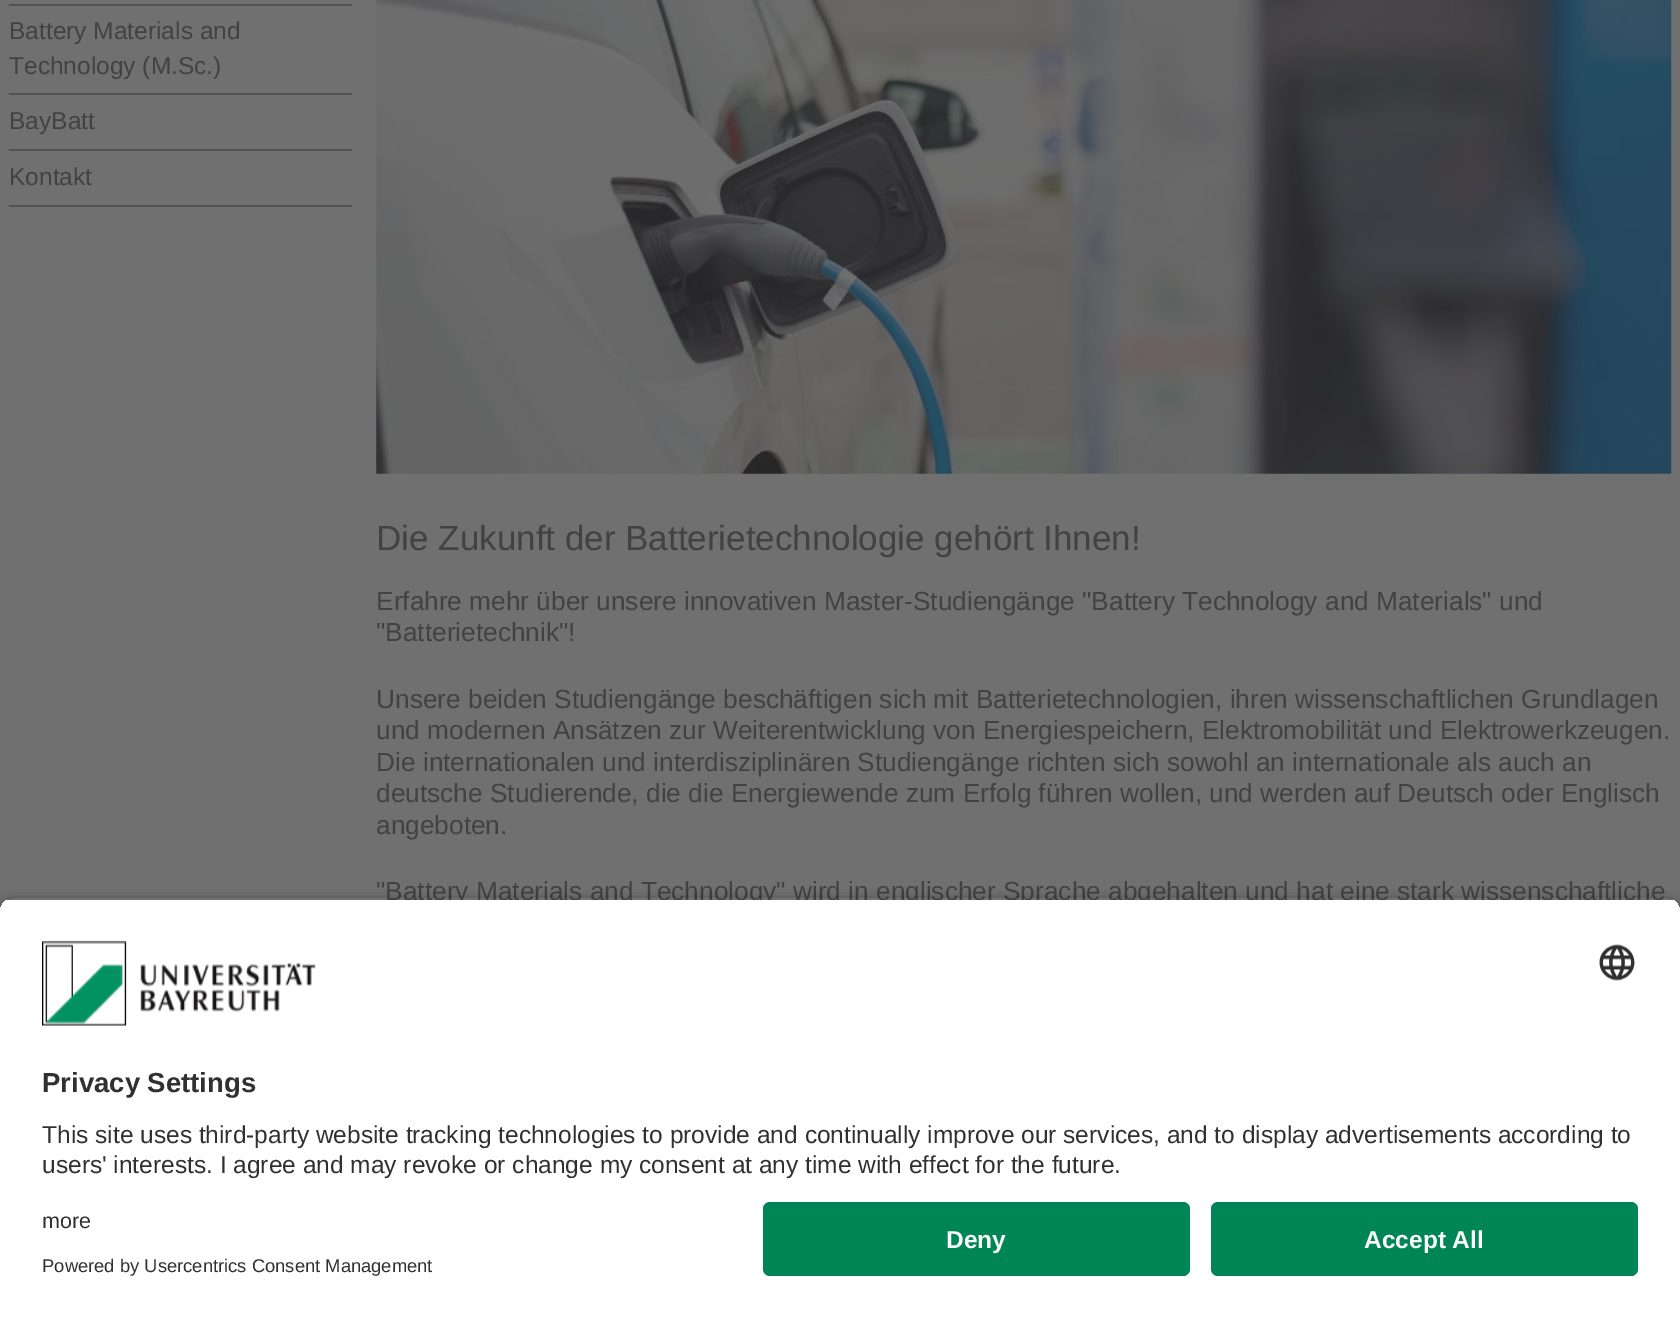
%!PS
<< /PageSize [1680 1317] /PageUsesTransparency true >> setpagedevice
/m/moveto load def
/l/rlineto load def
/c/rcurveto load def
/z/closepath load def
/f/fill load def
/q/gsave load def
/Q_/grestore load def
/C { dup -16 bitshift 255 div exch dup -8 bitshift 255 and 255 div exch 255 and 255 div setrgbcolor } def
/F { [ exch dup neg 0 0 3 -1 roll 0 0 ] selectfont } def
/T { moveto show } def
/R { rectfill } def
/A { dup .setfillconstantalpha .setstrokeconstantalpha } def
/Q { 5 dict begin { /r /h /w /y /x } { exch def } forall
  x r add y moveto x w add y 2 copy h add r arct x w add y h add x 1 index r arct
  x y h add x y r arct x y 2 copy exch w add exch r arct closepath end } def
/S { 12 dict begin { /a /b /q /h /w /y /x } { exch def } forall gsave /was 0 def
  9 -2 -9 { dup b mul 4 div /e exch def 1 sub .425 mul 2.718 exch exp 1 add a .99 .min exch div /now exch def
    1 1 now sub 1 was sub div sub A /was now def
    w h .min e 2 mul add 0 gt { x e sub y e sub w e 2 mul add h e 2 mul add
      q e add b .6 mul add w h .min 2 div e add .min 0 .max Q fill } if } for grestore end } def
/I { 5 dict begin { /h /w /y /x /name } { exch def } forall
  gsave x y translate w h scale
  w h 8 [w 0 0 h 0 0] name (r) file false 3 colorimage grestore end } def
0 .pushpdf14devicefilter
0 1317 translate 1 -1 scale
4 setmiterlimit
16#707070 C
0 0 1680 1317 R
16#525252 C
9 205 343 2 R
9 4 343 2 R
/LiberationSans-Regular 24.5 F
16#424242 C
(Battery Materials and) 9 39 T
(Technology \(M.Sc.\)) 9 74 T
16#525252 C
9 93 343 2 R
16#424242 C
(BayBatt) 9 129 T
16#525252 C
9 149 343 2 R
16#424242 C
(Kontakt) 9 185 T
(1.rgb) 376 0 1296 474 I
/LiberationSans-Regular 35 F
(Die Zukunft der Batterietechnologie gehört Ihnen!) 376 550 T
/LiberationSans-Regular 26.25 F
(Erfahre mehr über unsere innovativen Master-Studiengänge "Battery Technology and Materials" und) 376 610 T
("Batterietechnik"!) 376 641 T
(Unsere beiden Studiengänge beschäftigen sich mit Batterietechnologien, ihren wissenschaftlichen Grundlagen) 376 708 T
(und modernen Ansätzen zur Weiterentwicklung von Energiespeichern, Elektromobilität und Elektrowerkzeugen.) 376 739 T
(Die internationalen und interdisziplinären Studiengänge richten sich sowohl an internationale als auch an) 376 771 T
(deutsche Studierende, die die Energiewende zum Erfolg führen wollen, und werden auf Deutsch oder Englisch) 376 802 T
(angeboten.) 376 834 T
("Battery Materials and Technology" wird in englischer Sprache abgehalten und hat eine stark wissenschaftliche) 376 900 T
q
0 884 m 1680 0 l 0 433 l -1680 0 l z 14 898 m 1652 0 l 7.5 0 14 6.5 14 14 c 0 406 l -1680 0 l 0 -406 l 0 -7.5 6.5 -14 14 -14 c z eoclip newpath
16#000000 C
0 903 1680 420 14 6 .8 S
Q_
q
14 898 m 1652 0 l 7.5 0 14 6.5 14 14 c 0 276 l -1680 0 l 0 -276 l 0 -7.5 6.5 -14 14 -14 c z clip newpath
16#FFFFFF C
0 900 1680 288 R
Q_
(2.rgb) 42 940 274 86 I
(3.rgb) 1599 944 36 37 I
/LiberationSans-Bold 27.5 F
16#303030 C
(Privacy Settings) 42 1092 T
/LiberationSans-Regular 24.5 F
(This site uses third-party website tracking technologies to provide and continually improve our services, and to display advertisements according to) 42 1143 T
(users' interests. I agree and may revoke or change my consent at any time with effect for the future.) 42 1173 T
16#FFFFFF C
0 1188 1680 129 R
/LiberationSans-Regular 21.5 F
16#303030 C
(more) 42 1228 T
/LiberationSans-Regular 18.4 F
(Powered by Usercentrics Consent Management) 42 1272 T
16#008557 C
763 1202 427 74 7 Q f
/LiberationSans-Bold 24.5 F
16#FAFAFA C
(Deny) 946 1248 T
16#008557 C
1211 1202 427 74 7 Q f
16#FAFAFA C
(Accept All) 1364 1248 T
.poppdf14devicefilter showpage
